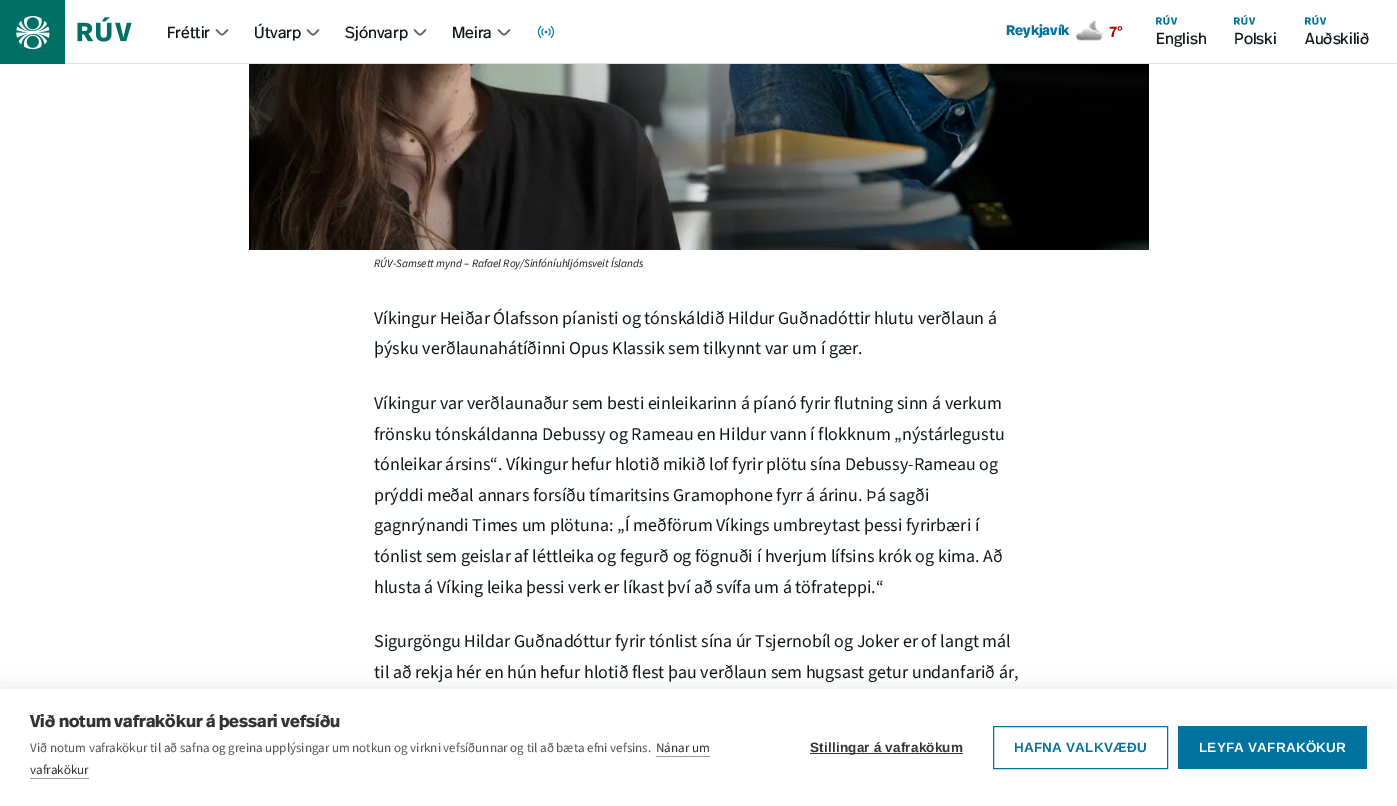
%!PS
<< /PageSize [1397 806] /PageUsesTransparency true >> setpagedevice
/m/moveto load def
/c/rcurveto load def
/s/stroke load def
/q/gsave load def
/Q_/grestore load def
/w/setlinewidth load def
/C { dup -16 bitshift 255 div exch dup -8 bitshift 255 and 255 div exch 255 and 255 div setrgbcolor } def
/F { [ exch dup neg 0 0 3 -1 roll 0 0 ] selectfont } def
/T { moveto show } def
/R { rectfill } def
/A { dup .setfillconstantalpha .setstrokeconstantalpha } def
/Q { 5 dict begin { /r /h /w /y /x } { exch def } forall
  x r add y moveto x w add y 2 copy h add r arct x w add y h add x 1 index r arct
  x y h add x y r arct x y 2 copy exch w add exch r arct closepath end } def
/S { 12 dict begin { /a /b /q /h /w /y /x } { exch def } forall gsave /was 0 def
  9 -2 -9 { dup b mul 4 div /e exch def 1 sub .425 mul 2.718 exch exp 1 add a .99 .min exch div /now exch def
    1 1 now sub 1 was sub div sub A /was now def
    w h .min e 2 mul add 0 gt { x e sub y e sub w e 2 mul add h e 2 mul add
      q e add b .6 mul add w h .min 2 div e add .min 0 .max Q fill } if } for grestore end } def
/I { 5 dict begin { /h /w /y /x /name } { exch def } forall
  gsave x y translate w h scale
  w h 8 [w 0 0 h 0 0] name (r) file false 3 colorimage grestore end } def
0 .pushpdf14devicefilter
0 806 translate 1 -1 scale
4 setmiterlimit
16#FFFFFF C
0 0 1397 806 R
16#E2E2E2 C
65 63 1332 1 R
(1.rgb) 0 0 132 64 I
/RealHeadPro-Regular 16 F
16#11181C C
(Fréttir) 167 38 T
16#646464 C
1.5 w
1 setlinecap
1 setlinejoin
227.5 30 m -6.5 6.5 -4.5 6.5 -11 0 c s
16#11181C C
(Útvarp) 254 38 T
16#646464 C
318.5 30 m -6.5 6.5 -4.5 6.5 -11 0 c s
16#11181C C
(Sjónvarp) 345 38 T
16#646464 C
425.5 30 m -6.5 6.5 -4.5 6.5 -11 0 c s
16#11181C C
(Meira) 452 38 T
16#646464 C
509.5 30 m -6.5 6.5 -4.5 6.5 -11 0 c s
(2.rgb) 537 25 18 14 I
/RealHeadPro-Bold 14 F
16#0073A0 C
(Reykjavík) 1006 35 T
(3.rgb) 1076 20 28 21 I
/SourceSans3-Bold 16 F
16#AC0802 C
(7°) 1109 37 T
(4.rgb) 1156 15 21 10 I
/RealHeadPro-Regular 16 F
16#11181C C
(English) 1156 44 T
(5.rgb) 1234 15 22 10 I
(Polski) 1234 44 T
(4.rgb) 1305 15 21 10 I
(Auðskilið) 1305 44 T
(6.rgb) 249 64 900 186 I
/SourceSans3-Italic 11.2 F
(RÚV-Samsett mynd – Rafael Roy/Sinfóníuhljómsveit Íslands) 374 267 T
/SourceSans3-Regular 18 F
(Víkingur Heiðar Ólafsson píanisti og tónskáldið Hildur Guðnadóttir hlutu verðlaun á) 374 324 T
(þýsku verðlaunahátíðinni Opus Klassik sem tilkynnt var um í gær.) 374 354 T
(Víkingur var verðlaunaður sem besti einleikarinn á píanó fyrir flutning sinn á verkum) 374 409 T
(frönsku tónskáldanna Debussy og Rameau en Hildur vann í flokknum „nýstárlegustu) 374 440 T
(tónleikar ársins“. Víkingur hefur hlotið mikið lof fyrir plötu sína Debussy-Rameau og) 374 470 T
(prýddi meðal annars forsíðu tímaritsins Gramophone fyrr á árinu. Þá sagði) 374 501 T
(gagnrýnandi Times um plötuna: „Í meðförum Víkings umbreytast þessi fyrirbæri í) 374 531 T
(tónlist sem geislar af léttleika og fegurð og fögnuði í hverjum lífsins krók og kima. Að) 374 562 T
(hlusta á Víking leika þessi verk er líkast því að svífa um á töfrateppi.“) 374 593 T
(Sigurgöngu Hildar Guðnadóttur fyrir tónlist sína úr Tsjernobíl og Joker er of langt mál) 374 647 T
(til að rekja hér en hún hefur hlotið flest þau verðlaun sem hugsast getur undanfarið ár,) 374 678 T
16#000000 C
0 689 1397 117 0 10 .1 S
16#FFFFFF C
0 689 1397 117 R
q
30 714 720 67 rectclip
/RealHeadPro-Bold 17 F
16#333333 C
(Við notum vafrakökur á þessari vefsíðu) 30 727 T
Q_
/SourceSans3-Regular 13 F
16#555555 C
(Við notum vafrakökur til að safna og greina upplýsingar um notkun og virkni vefsíðunnar og til að bæta efni vefsins.) 30 752 T
16#333333 C
(Nánar um) 656 752 T
16#999999 C
656 756 54 1 R
16#333333 C
(vafrakökur) 30 774 T
16#999999 C
30 778 59 1 R
16#333333 C
810 753 153 1 R
/LiberationSans-Bold 13.5 F
810 752 m .2 0 (Stillingar á vafrakökum) ashow
16#0073A0 C
1 w
0 setlinecap
0 setlinejoin
993.5 726.5 174 42 rectstroke
1014 752 m .2 0 (HAFNA VALKVÆÐU) ashow
1178 726 189 43 R
16#FFFFFF C
1199 752 m .2 0 (LEYFA VAFRAKÖKUR) ashow
.poppdf14devicefilter showpage
